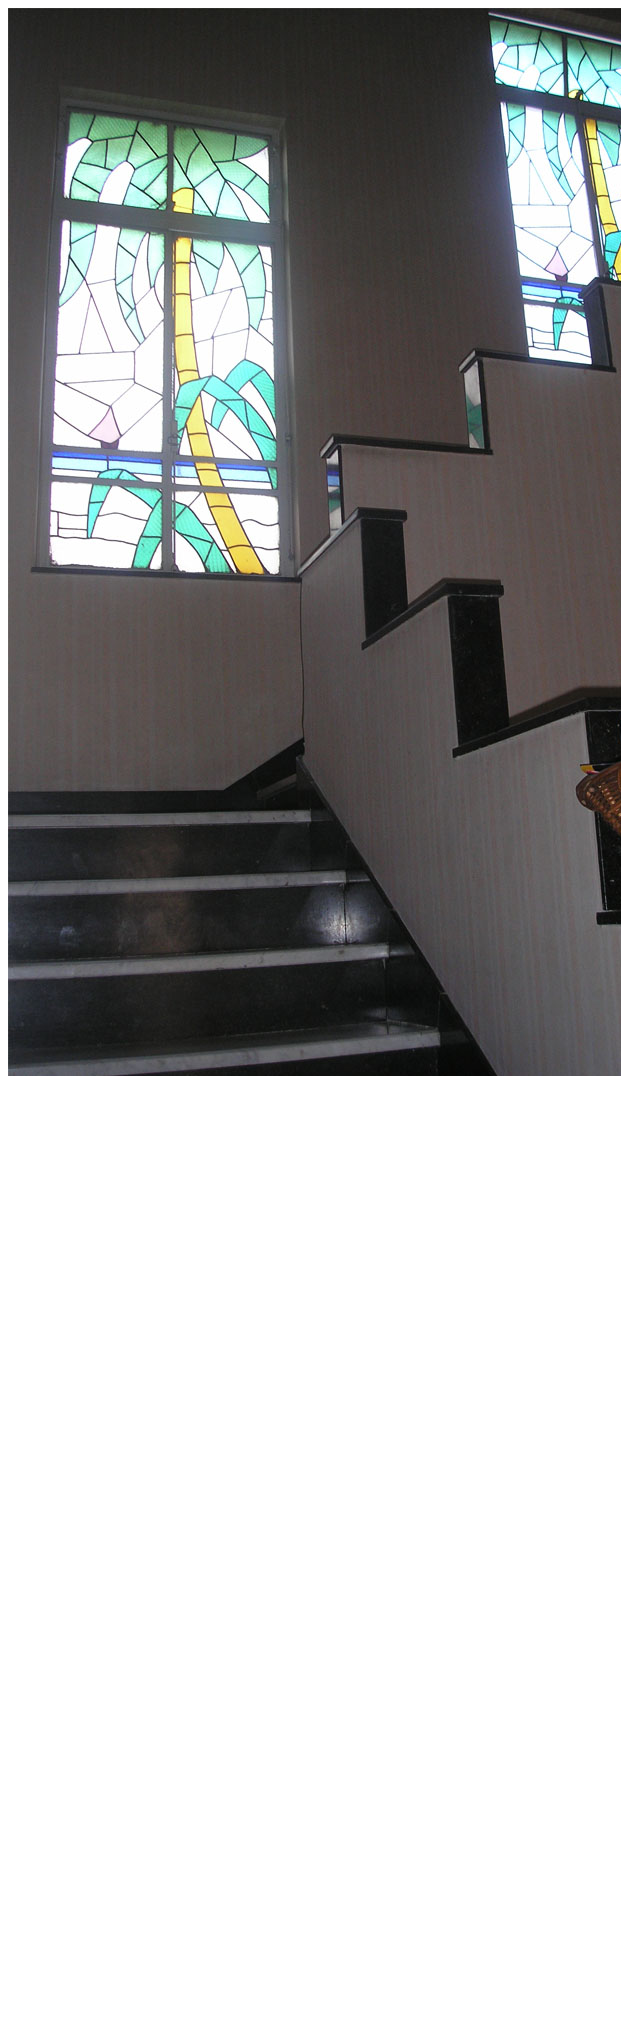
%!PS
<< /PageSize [621 2037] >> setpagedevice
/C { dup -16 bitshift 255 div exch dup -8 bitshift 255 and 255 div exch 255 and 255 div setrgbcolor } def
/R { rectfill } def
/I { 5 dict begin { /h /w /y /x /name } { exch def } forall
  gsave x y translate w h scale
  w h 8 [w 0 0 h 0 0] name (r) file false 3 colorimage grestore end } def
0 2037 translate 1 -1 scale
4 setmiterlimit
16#FFFFFF C
0 0 621 2037 R
(1.rgb) 8 8 613 1068 I
showpage
